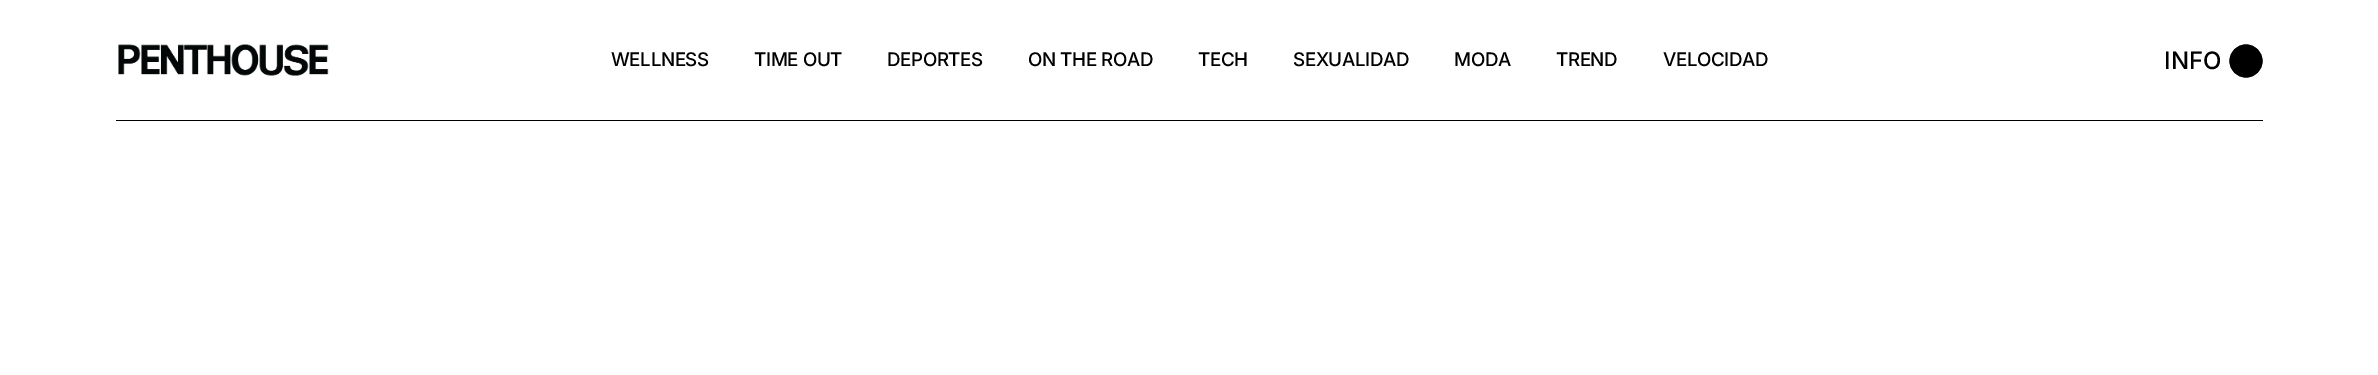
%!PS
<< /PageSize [2378 375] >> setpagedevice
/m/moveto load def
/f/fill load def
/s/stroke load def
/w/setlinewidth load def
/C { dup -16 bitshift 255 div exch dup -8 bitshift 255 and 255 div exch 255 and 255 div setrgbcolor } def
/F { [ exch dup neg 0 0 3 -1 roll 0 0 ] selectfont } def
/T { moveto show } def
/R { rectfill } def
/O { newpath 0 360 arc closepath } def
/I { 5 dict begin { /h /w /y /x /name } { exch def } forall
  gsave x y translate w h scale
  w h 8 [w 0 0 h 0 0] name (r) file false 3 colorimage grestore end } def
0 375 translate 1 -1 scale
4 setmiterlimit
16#FFFFFF C
0 0 2378 375 R
16#000000 C
116 120 2147 1 R
(1.rgb) 118 44 211 32 I
/Inter-Medium 18.75 F
611 66 m -.4 0 (WELLNESS) ashow
754 66 m -.4 0 (TIME OUT) ashow
887 66 m -.4 0 (DEPORTES) ashow
1028 66 m -.4 0 (ON THE ROAD) ashow
1198 66 m -.4 0 (TECH) ashow
1293 66 m -.4 0 (SEXUALIDAD) ashow
1454 66 m -.4 0 (MODA) ashow
1556 66 m -.4 0 (TREND) ashow
1663 66 m -.4 0 (VELOCIDAD) ashow
/Inter-Medium 24 F
(INFO) 2164 69 T
1.2 w
2246 61 16 O s
2246 61 16 O f
showpage
